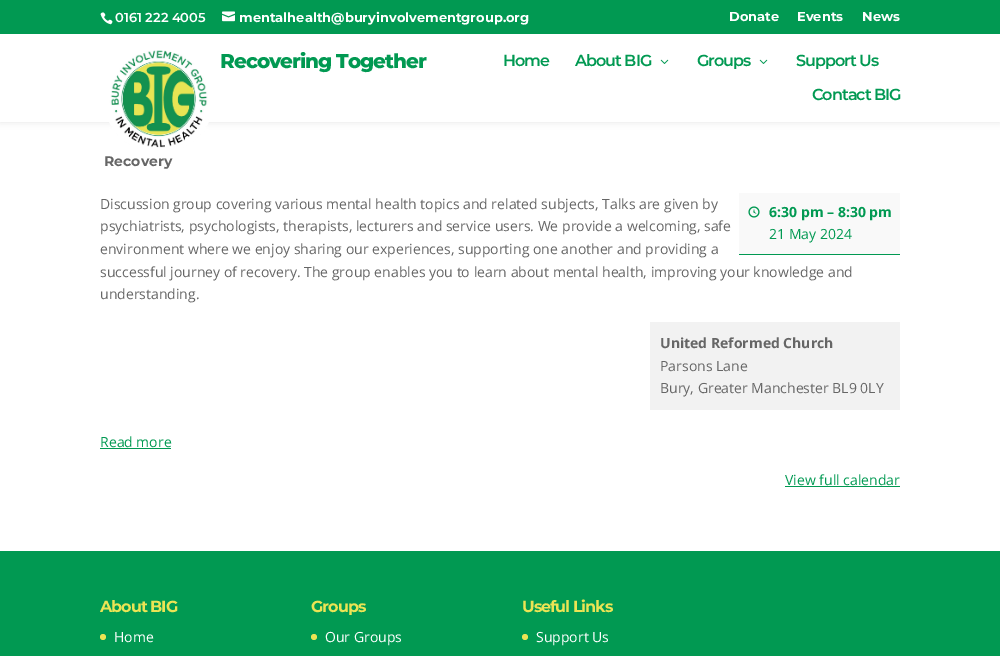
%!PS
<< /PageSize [1000 656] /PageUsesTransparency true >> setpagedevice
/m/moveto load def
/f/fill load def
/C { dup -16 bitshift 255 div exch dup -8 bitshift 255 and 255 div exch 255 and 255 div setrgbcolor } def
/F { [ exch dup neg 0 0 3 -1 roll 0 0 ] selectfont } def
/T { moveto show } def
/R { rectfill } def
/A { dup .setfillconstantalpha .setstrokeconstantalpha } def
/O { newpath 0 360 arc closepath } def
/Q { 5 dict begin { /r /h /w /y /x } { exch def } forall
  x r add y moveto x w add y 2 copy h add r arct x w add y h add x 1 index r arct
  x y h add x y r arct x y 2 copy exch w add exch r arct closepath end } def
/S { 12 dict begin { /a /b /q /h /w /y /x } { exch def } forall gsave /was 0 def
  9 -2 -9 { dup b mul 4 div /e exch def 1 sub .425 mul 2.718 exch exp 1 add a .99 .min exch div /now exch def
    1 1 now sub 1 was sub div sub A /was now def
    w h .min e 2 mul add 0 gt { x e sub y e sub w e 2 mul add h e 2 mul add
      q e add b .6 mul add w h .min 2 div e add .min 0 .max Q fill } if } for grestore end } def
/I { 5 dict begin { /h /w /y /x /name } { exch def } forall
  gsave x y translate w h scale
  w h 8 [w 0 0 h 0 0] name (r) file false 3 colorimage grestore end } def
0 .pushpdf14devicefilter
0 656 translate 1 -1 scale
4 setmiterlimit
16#FFFFFF C
0 0 1000 656 R
16#000000 C
0 34 1000 88 0 3.5 .1 S
16#019952 C
0 0 1000 34 R
(1.rgb) 100 12 13 13 I
/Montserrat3-Thin 13 F
16#FFFFFF C
(0161 222 4005) 115 22 T
(2.rgb) 222 11 13 11 I
/Montserrat-Thin 13 F
(mentalhealth@buryinvolvementgroup.org) 239 22 T
(Donate) 729 21 T
(Events) 797 21 T
(News) 862 21 T
0 34 1000 88 R
(3.rgb) 109 50 100 98 I
/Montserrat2-Thin 20 F
16#019952 C
220 68 m -1 0 (Recovering Together) ashow
/Montserrat3-Thin 16 F
503 66 m -1 0 (Home) ashow
575 66 m -1 0 (About BIG) ashow
(4.rgb) 660 59 9 5 I
697 66 m -1 0 (Groups) ashow
(4.rgb) 759 59 9 5 I
796 66 m -1 0 (Support Us) ashow
812 100 m -1 0 (Contact BIG) ashow
/Montserrat-Thin 14 F
16#666666 C
(Recovery) 104 166 T
/OpenSans-Regular 14 F
(Discussion group covering various mental health topics and related subjects, Talks are given by) 100 209 T
(psychiatrists, psychologists, therapists, lecturers and service users. We provide a welcoming, safe) 100 231 T
(environment where we enjoy sharing our experiences, supporting one another and providing a) 100 254 T
(successful journey of recovery. The group enables you to learn about mental health, improving your knowledge and) 100 277 T
(understanding.) 100 299 T
16#F9F9F9 C
739 193 161 61 R
16#019952 C
739 254 161 1 R
(5.rgb) 748 206 12 12 I
/OpenSans-Bold 14 F
(6:30 pm – 8:30 pm) 769 217 T
/OpenSans-Regular 14 F
(21 May 2024) 769 239 T
16#F2F2F2 C
650 322 250 88 R
/OpenSans-Bold 14 F
16#666666 C
(United Reformed Church) 660 348 T
/OpenSans-Regular 14 F
(Parsons Lane) 660 371 T
(Bury, Greater Manchester BL9 0LY) 660 393 T
16#019952 C
(Read more) 100 447 T
100 448 71 1 R
(View full calendar) 785 485 T
785 486 115 1 R
0 551 1000 105 R
/Montserrat-Thin 16 F
16#EBE454 C
100 612 m -1 0 (About BIG) ashow
103 637 3 O f
/OpenSans-Regular 14 F
16#FFFFFF C
(Home) 114 642 T
/Montserrat-Thin 16 F
16#EBE454 C
311 612 m -1 0 (Groups) ashow
314 637 3 O f
/OpenSans-Regular 14 F
16#FFFFFF C
(Our Groups) 325 642 T
/Montserrat-Thin 16 F
16#EBE454 C
522 612 m -1 0 (Useful Links) ashow
525 637 3 O f
/OpenSans-Regular 14 F
16#FFFFFF C
(Support Us) 536 642 T
.poppdf14devicefilter showpage
